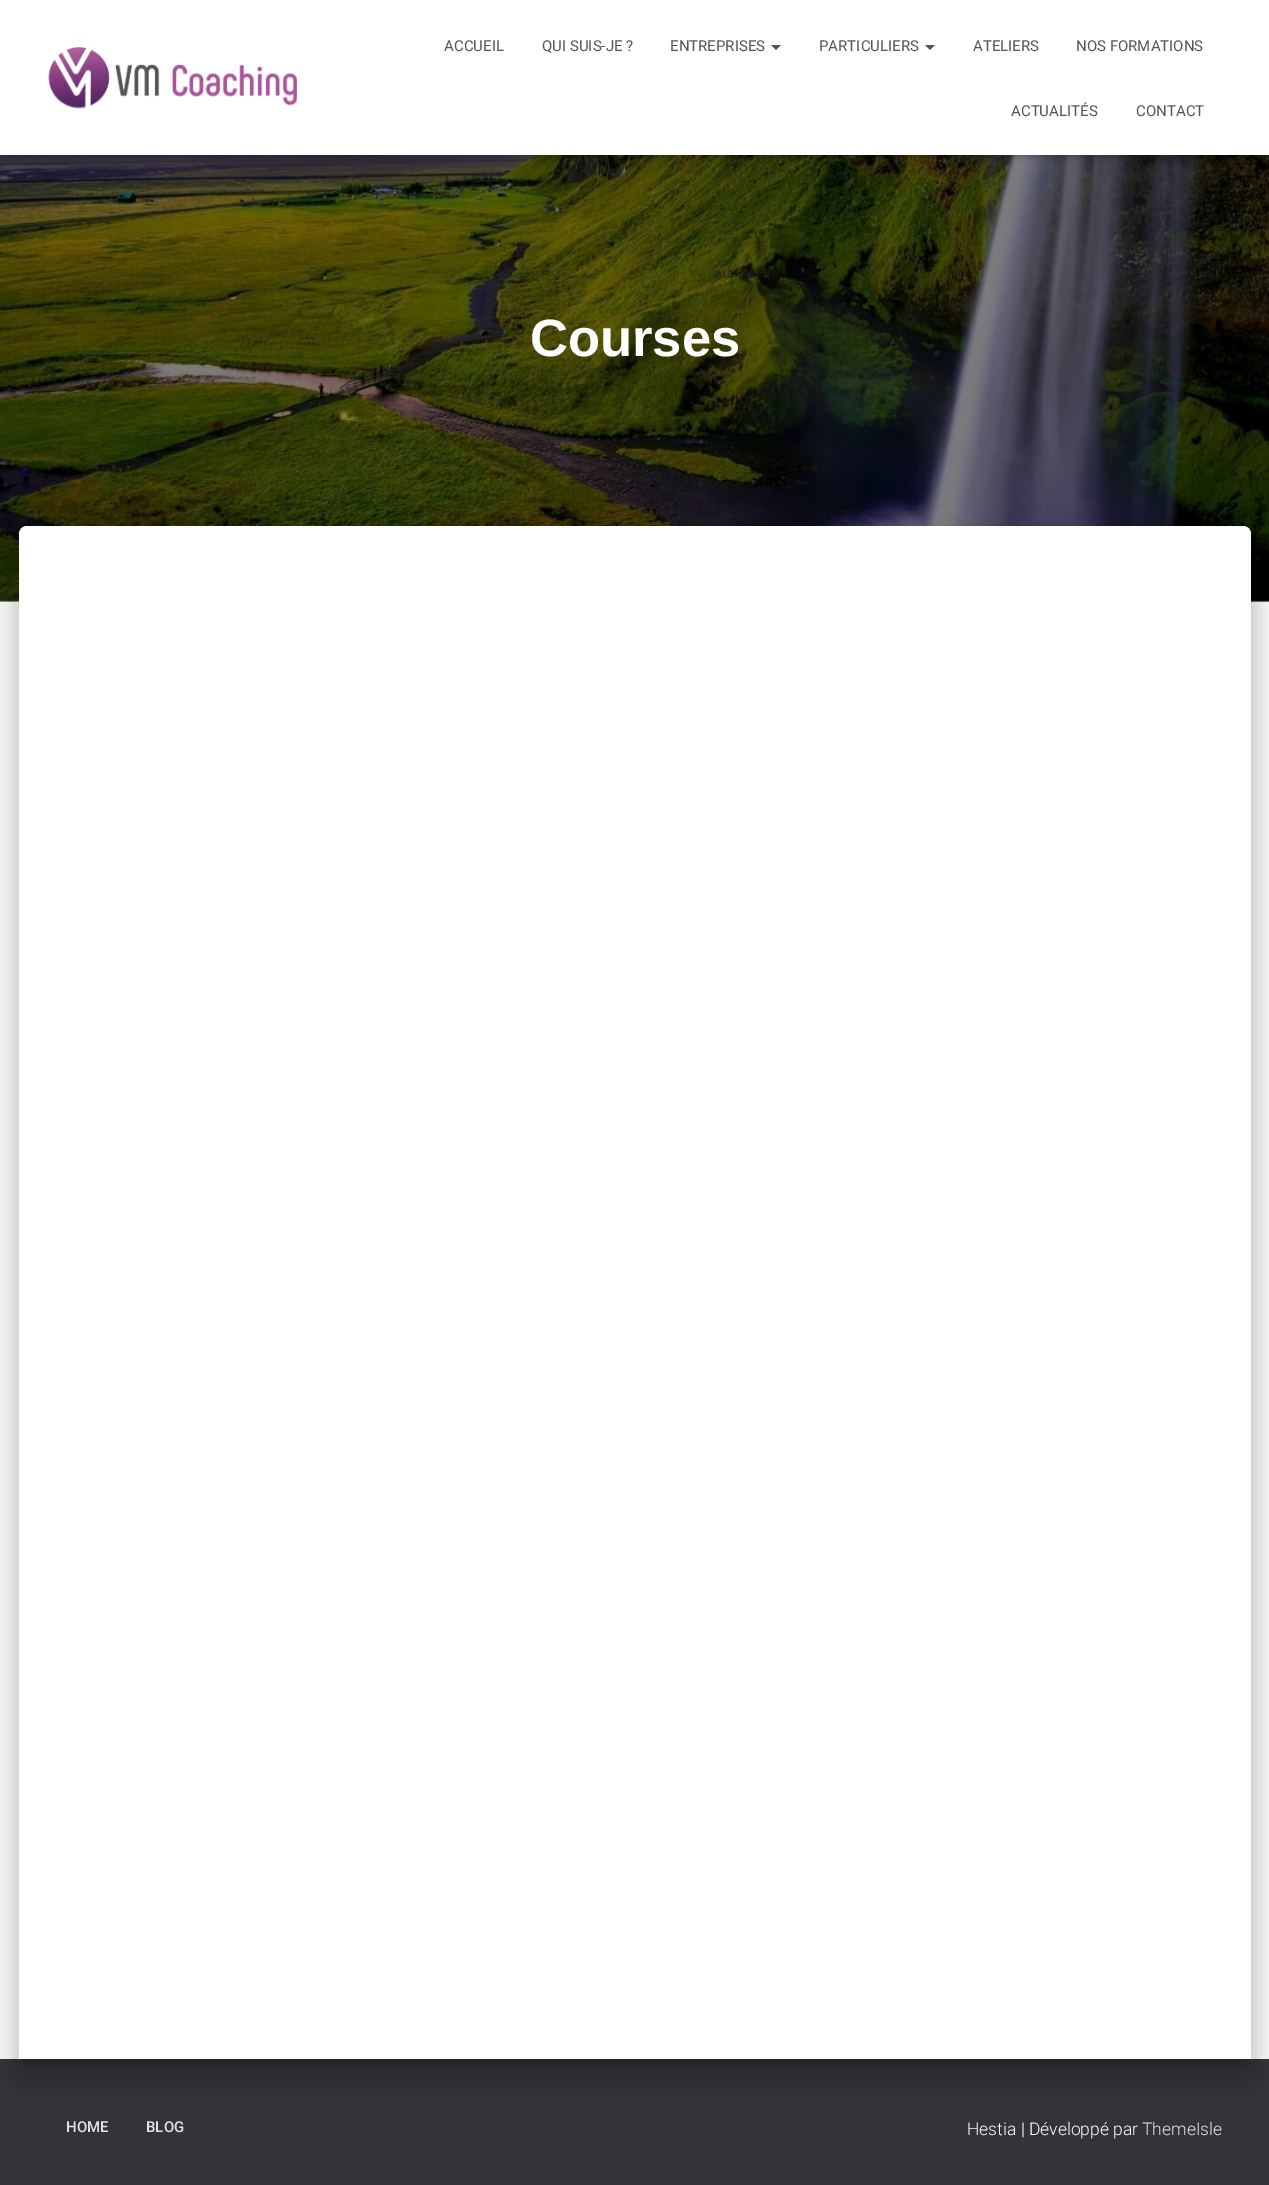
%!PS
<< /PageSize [1269 2185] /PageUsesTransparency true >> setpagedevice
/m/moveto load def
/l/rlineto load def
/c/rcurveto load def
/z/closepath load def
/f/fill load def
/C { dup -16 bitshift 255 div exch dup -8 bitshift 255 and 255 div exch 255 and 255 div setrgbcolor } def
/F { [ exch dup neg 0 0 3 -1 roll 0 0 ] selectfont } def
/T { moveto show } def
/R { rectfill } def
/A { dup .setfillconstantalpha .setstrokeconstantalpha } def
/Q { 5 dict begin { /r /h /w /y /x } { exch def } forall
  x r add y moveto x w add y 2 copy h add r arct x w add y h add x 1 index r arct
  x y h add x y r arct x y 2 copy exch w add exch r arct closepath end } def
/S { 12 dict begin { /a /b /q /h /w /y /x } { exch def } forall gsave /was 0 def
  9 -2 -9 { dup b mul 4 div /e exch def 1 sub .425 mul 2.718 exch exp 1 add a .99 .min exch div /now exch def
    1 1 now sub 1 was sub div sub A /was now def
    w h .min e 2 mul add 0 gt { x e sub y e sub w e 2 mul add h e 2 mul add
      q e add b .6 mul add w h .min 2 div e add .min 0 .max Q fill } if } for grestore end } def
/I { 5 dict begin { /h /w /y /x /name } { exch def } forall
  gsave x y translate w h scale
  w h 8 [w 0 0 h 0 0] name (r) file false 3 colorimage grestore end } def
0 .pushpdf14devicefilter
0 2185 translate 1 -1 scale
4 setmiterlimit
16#FFFFFF C
0 0 1269 2185 R
(2.rgb) 0 155 1269 447 I
16#000000 C
3 8 1265 150 0 3 .1 S
0 1 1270 155 0 6 .12 S
8 9 1255 140 0 6 .42 S
16#FFFFFF C
0 0 1269 155 R
(1.rgb) 48 47 250 62 I
/Roboto-Regular 15 F
16#555555 C
(ACCUEIL) 444 51 T
(QUI SUIS-JE ?) 542 51 T
(ENTREPRISES) 670 51 T
771 45 m 10 0 l -5 5 l z f
(PARTICULIERS) 819 51 T
925 45 m 10 0 l -5 5 l z f
(ATELIERS) 973 51 T
(NOS FORMATIONS) 1076 51 T
(ACTUALITÉS) 1011 116 T
(CONTACT) 1136 116 T
/LiberationSans-Bold 52.5 F
16#FFFFFF C
(Courses) 530 356 T
16#323437 C
0 2059 1269 126 R
16#000000 C
25 543 1220 1520 1 6 .2 S
13 528 1245 1545 14 19 .12 S
16 544 1238 1537 10 15 .14 S
16#FFFFFF C
27 526 m 1216 0 l 4.5 0 8 3.5 8 8 c 0 1525 l -1232 0 l 0 -1525 l 0 -4.5 3.5 -8 8 -8 c z f
/Roboto-Medium 15 F
16#E2E3E3 C
(HOME) 66 2132 T
(BLOG) 146 2132 T
/Roboto-Light 17.5 F
16#FFFFFF C
(Hestia | Développé par) 967 2135 T
16#E2E3E3 C
(ThemeIsle) 1142 2135 T
.poppdf14devicefilter showpage
